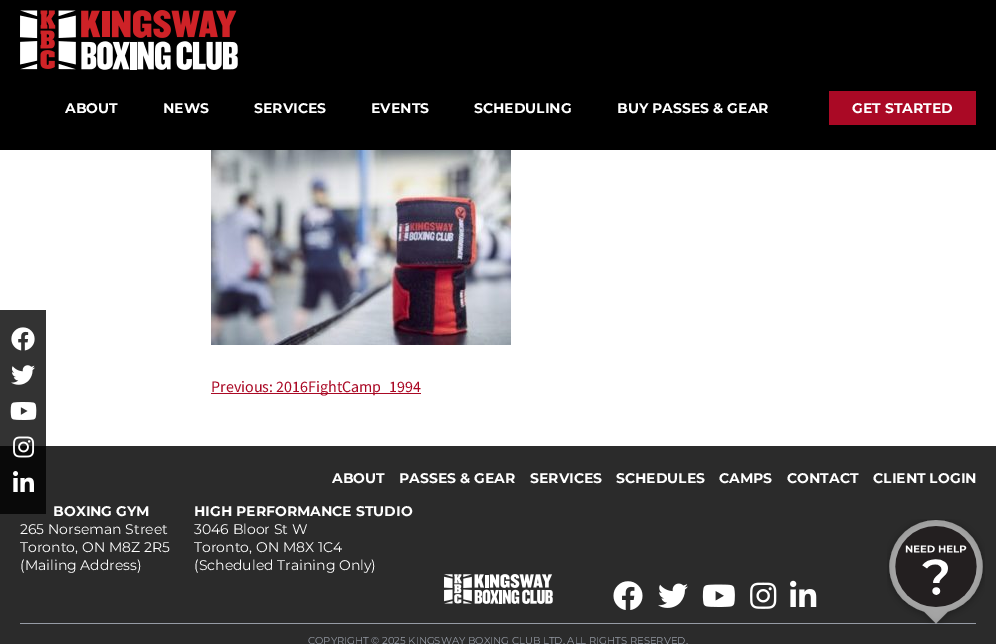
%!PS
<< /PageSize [996 644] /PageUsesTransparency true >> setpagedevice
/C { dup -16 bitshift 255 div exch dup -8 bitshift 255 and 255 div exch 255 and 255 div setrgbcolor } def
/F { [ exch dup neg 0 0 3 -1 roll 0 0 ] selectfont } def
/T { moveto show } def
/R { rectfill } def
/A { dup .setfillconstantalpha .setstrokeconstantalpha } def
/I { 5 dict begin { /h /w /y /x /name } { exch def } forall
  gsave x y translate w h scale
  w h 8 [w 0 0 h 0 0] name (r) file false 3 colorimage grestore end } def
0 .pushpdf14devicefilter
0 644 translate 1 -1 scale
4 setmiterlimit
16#FFFFFF C
0 0 996 644 R
16#000000 C
0 0 996 150 R
(1.rgb) 20 10 218 60 I
/Montserrat-Bold 14 F
16#FFFFFF C
(ABOUT) 65 113 T
(NEWS) 163 113 T
(SERVICES) 254 113 T
(EVENTS) 371 113 T
(SCHEDULING) 474 113 T
(BUY PASSES & GEAR) 617 113 T
16#AA0925 C
829 91 147 34 R
16#FFFFFF C
(GET STARTED) 852 113 T
16#2B2B2B C
0 446 996 198 R
0.8 A
16#000000 C
0 310 46 204 R
1 A
(2.rgb) 11 327 24 24 I
(3.rgb) 11 365 24 20 I
(4.rgb) 10 402 27 18 I
(5.rgb) 13 436 22 22 I
(6.rgb) 13 471 21 21 I
(7.rgb) 211 150 300 195 I
16#AA0925 C
211 393 210 1 R
/SourceSansPro-Regular 16 F
(Previous: 2016FightCamp_1994) 211 392 T
/Montserrat-Bold 14 F
16#FFFFFF C
(ABOUT) 332 483 T
(PASSES & GEAR) 399 483 T
(SERVICES) 530 483 T
(SCHEDULES) 616 483 T
(CAMPS) 719 483 T
(CONTACT) 787 483 T
(CLIENT LOGIN) 873 483 T
(BOXING GYM) 53 516 T
/Montserrat-Regular 14 F
(265 Norseman Street) 20 534 T
(Toronto, ON M8Z 2R5) 20 552 T
(\(Mailing Address\)) 20 570 T
/Montserrat-Bold 14 F
(HIGH PERFORMANCE STUDIO) 194 516 T
/Montserrat-Regular 14 F
(3046 Bloor St W) 194 534 T
(Toronto, ON M8X 1C4) 194 552 T
(\(Scheduled Training Only\)) 194 570 T
(8.rgb) 444 574 109 30 I
(9.rgb) 613 581 30 29 I
(10.rgb) 658 583 30 25 I
(11.rgb) 702 584 33 23 I
(12.rgb) 750 582 27 27 I
(13.rgb) 790 580 27 27 I
16#969BA5 C
20 623 956 1 R
/Montserrat-Regular 10 F
(COPYRIGHT © 2025 KINGSWAY BOXING CLUB LTD. ALL RIGHTS RESERVED.) 308 644 T
(14.rgb) 887 519 98 105 I
.poppdf14devicefilter showpage
